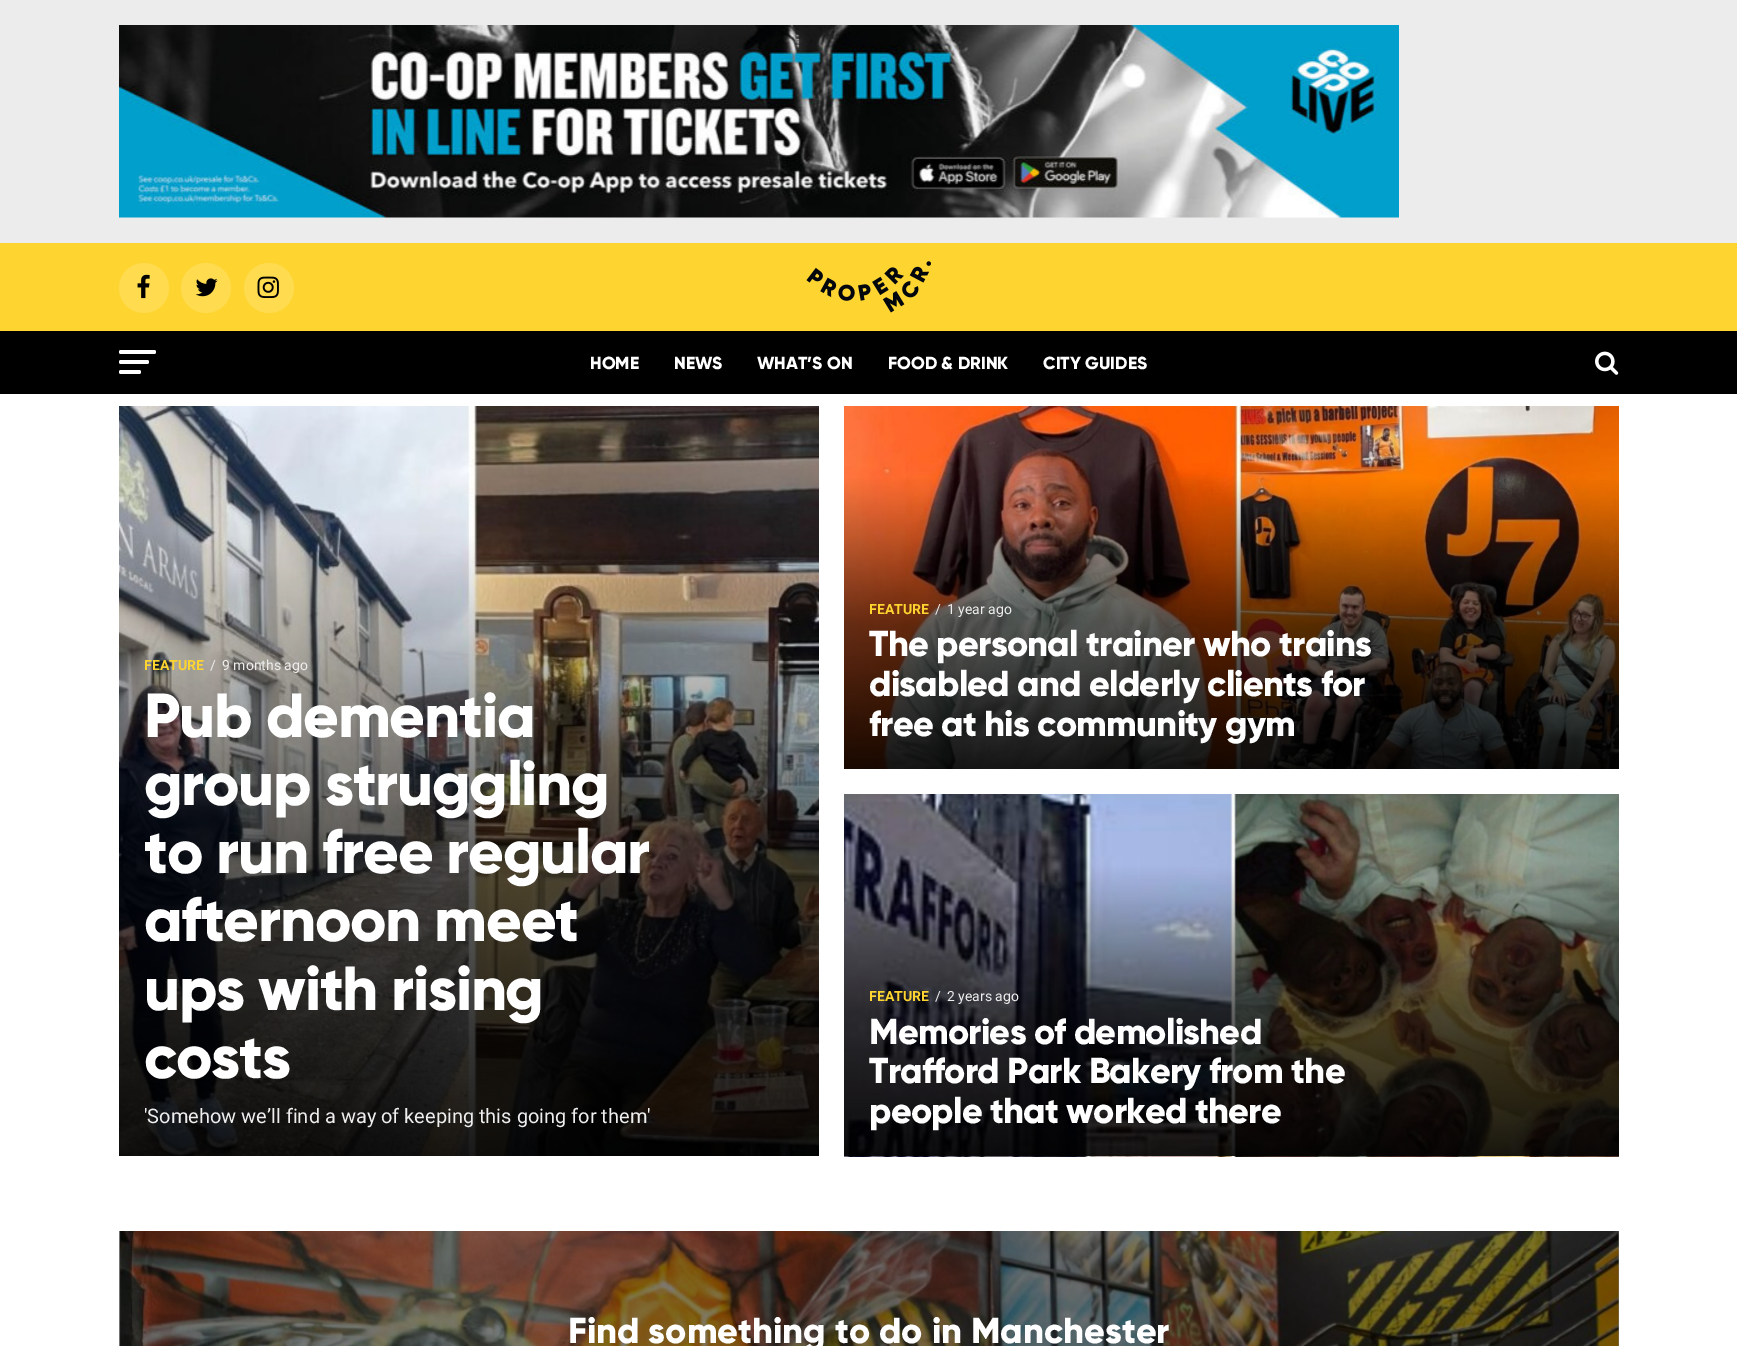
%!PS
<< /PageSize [1737 1346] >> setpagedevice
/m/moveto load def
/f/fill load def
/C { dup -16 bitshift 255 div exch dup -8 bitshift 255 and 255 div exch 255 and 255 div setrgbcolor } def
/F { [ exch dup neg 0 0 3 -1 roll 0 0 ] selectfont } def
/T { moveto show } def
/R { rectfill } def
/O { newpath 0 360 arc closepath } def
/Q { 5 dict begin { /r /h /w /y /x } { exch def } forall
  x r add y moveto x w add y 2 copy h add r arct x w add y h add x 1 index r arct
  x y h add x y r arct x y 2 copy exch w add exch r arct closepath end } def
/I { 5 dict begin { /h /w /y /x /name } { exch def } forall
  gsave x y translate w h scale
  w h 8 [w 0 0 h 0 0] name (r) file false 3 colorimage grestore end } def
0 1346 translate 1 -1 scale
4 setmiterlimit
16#FFFFFF C
0 0 1737 1346 R
16#808080 C
119 1231 1500 115 R
16#ECECEC C
0 0 1737 243 R
(1.rgb) 119 25 1280 193 I
16#FED530 C
0 243 1737 88 R
16#FEDB4F C
144 288 25 O f
(2.rgb) 137 274 13 25 I
206 288 25 O f
(3.rgb) 195 278 23 19 I
269 288 25 O f
(4.rgb) 257 276 22 22 I
(5.rgb) 806 261 125 52 I
16#000000 C
0 331 1737 63 R
16#FFFFFF C
119 350 37 4 2 Q f
119 360 30 4 2 Q f
119 370 22 4 2 Q f
/Gilroy-ExtraBold 17.5 F
(HOME) 590 369 T
(NEWS) 674 369 T
(WHAT’S ON) 757 369 T
(FOOD & DRINK) 888 369 T
(CITY GUIDES) 1043 369 T
(6.rgb) 1595 351 24 24 I
(7.rgb) 119 406 700 750 I
/Roboto-Bold 14 F
16#FED530 C
(FEATURE) 144 670 T
/Roboto-Regular 14 F
16#EEEEEE C
(/) 210 670 T
(9 months ago) 222 670 T
/Gilroy-ExtraBold 62 F
16#FFFFFF C
144 737 m -1.25 0 (Pub dementia) ashow
144 805 m -1.25 0 (group struggling) ashow
144 873 m -1.25 0 (to run free regular) ashow
144 941 m -1.25 0 (afternoon meet) ashow
144 1010 m -1.25 0 (ups with rising) ashow
144 1078 m -1.25 0 (costs) ashow
/Roboto-Regular 20 F
16#EEEEEE C
('Somehow we’ll find a way of keeping this going for them') 144 1123 T
(8.rgb) 844 406 775 363 I
/Roboto-Bold 14 F
16#FED530 C
(FEATURE) 869 614 T
/Roboto-Regular 14 F
16#EEEEEE C
(/) 935 614 T
(1 year ago) 947 614 T
/Gilroy-ExtraBold 36 F
16#FFFFFF C
869 656 m -.75 0 (The personal trainer who trains) ashow
869 696 m -.75 0 (disabled and elderly clients for) ashow
869 736 m -.75 0 (free at his community gym) ashow
(9.rgb) 844 794 775 363 I
/Roboto-Bold 14 F
16#FED530 C
(FEATURE) 869 1001 T
/Roboto-Regular 14 F
16#EEEEEE C
(/) 935 1001 T
(2 years ago) 947 1001 T
/Gilroy-ExtraBold 36 F
16#FFFFFF C
869 1044 m -.75 0 (Memories of demolished) ashow
869 1083 m -.75 0 (Trafford Park Bakery from the) ashow
869 1123 m -.75 0 (people that worked there) ashow
(10.rgb) 119 1231 1500 115 I
(Find something to do in Manchester) 568 1343 T
showpage
